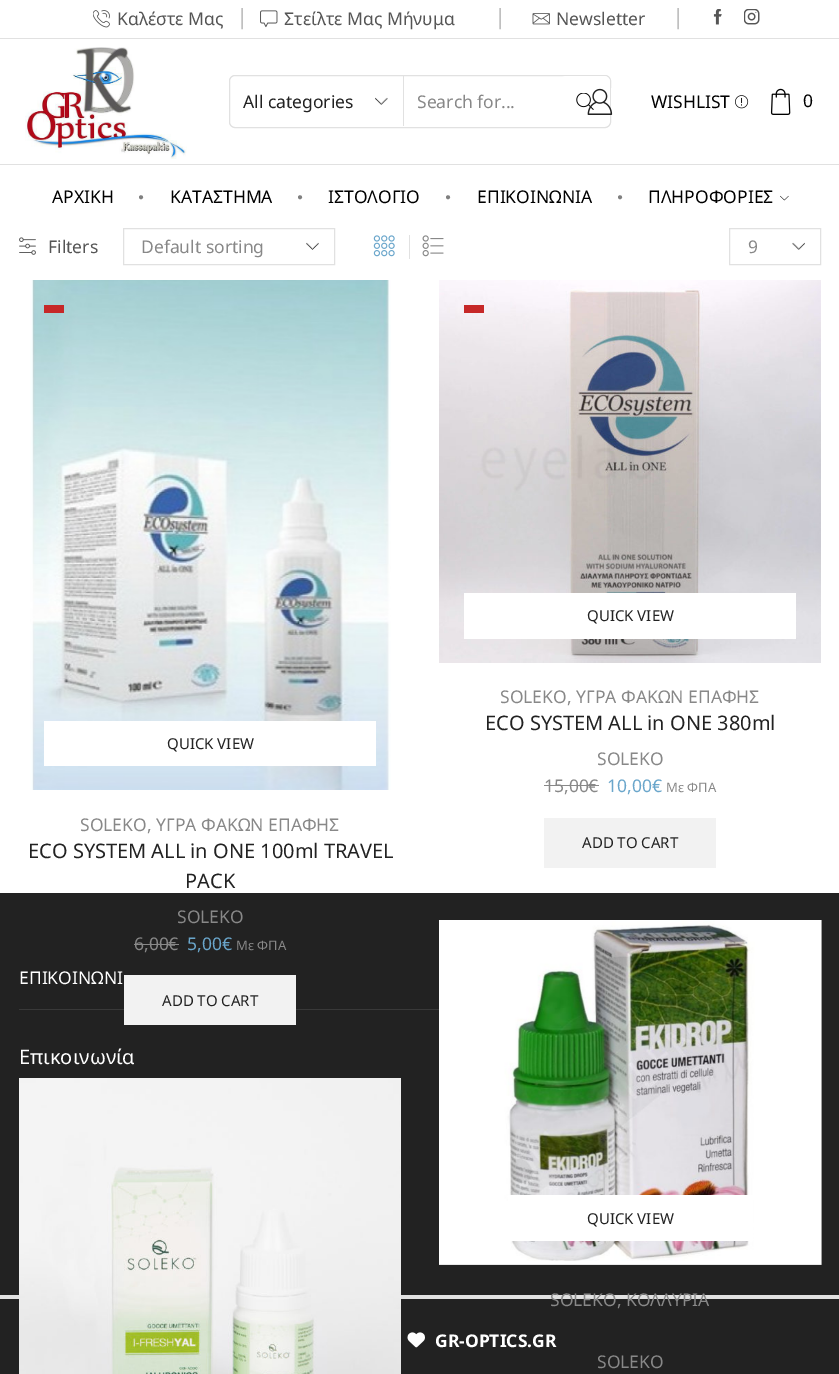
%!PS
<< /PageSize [839 1374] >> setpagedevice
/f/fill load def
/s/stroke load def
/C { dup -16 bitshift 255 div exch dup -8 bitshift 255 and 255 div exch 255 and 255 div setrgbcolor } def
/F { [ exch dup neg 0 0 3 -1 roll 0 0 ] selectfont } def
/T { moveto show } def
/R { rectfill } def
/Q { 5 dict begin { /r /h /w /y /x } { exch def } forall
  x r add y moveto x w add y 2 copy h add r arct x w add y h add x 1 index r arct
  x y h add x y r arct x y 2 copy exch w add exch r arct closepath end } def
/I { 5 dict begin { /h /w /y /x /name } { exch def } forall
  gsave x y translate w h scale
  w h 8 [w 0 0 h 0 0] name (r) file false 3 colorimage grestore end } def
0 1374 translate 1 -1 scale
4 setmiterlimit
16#FFFFFF C
0 0 839 1374 R
16#E1E1E1 C
0 38 839 1 R
(1.rgb) 93 10 17 18 I
/NotoSans-Regular 17.5 F
16#555555 C
(Καλέστε Μας) 117 25 T
/LiberationSerif-Regular 17.5 F
16#AAAAAA C
(│) 236 24 T
(2.rgb) 260 10 18 18 I
/NotoSans-Regular 17.5 F
16#555555 C
(Στείλτε Μας Μήνυμα) 284 25 T
/LiberationSerif-Regular 17.5 F
16#AAAAAA C
(│) 494 24 T
(3.rgb) 532 13 18 12 I
/NotoSans-Regular 17.5 F
16#555555 C
(Newsletter) 556 25 T
/LiberationSerif-Regular 17.5 F
16#AAAAAA C
(│) 672 24 T
(4.rgb) 713 9 9 16 I
(5.rgb) 744 9 16 16 I
16#E1E1E1 C
0 164 839 1 R
(6.rgb) 25 47 162 112 I
229.5 75.5 381 52 5.5 Q s
(7.rgb) 375 97 13 8 I
403 76 1 50 R
/NotoSans-Regular 17.5 F
16#222222 C
(All categories) 243 108 T
16#888888 C
(Search for...) 417 108 T
16#FFFFFF C
560 76 50 50 6 Q f
(8.rgb) 576 93 18 17 I
(9.rgb) 587 88 26 27 I
16#000000 C
(WISHLIST) 651 108 T
(10.rgb) 735 95 14 14 I
(11.rgb) 770 88 21 27 I
(0) 803 107 T
(ΑΡΧΙΚΗ) 52 203 T
/LiberationSerif-Regular 17.5 F
16#808080 C
(•) 138 203 T
/NotoSans-Regular 17.5 F
16#000000 C
(ΚΑΤΑΣΤΗΜΑ) 170 203 T
/LiberationSerif-Regular 17.5 F
16#808080 C
(•) 297 203 T
/NotoSans-Regular 17.5 F
16#000000 C
(ΙΣΤΟΛΟΓΙΟ) 328 203 T
/LiberationSerif-Regular 17.5 F
16#808080 C
(•) 445 203 T
/NotoSans-Regular 17.5 F
16#000000 C
(ΕΠΙΚΟΙΝΩΝΙΑ) 477 203 T
/LiberationSerif-Regular 17.5 F
16#808080 C
(•) 617 203 T
/NotoSans-Regular 17.5 F
16#000000 C
(ΠΛΗΡΟΦΟΡΙΕΣ) 648 203 T
(12.rgb) 780 195 9 6 I
(13.rgb) 19 237 17 18 I
16#555555 C
(Filters) 48 253 T
(14.rgb) 306 242 13 8 I
16#E1E1E1 C
123.5 228.5 211 36 rectstroke
16#888888 C
(Default sorting) 141 253 T
(15.rgb) 373 235 22 22 I
16#E1E1E1 C
409 235 1 24 R
(16.rgb) 422 235 22 22 I
(17.rgb) 792 242 13 8 I
729.5 228.5 91 36 rectstroke
16#888888 C
(9) 748 253 T
(18.rgb) 30 280 361 510 I
16#C62828 C
44 305 20 8 R
16#FFFFFF C
44 721 332 45 R
/NotoSans-Regular 15 F
16#222222 C
(QUICK VIEW) 167 749 T
/NotoSans-Regular 17.5 F
16#888888 C
(SOLEKO, ΥΓΡΑ ΦΑΚΩΝ ΕΠΑΦΗΣ) 80 831 T
/NotoSans-Regular 20 F
16#222222 C
(ECO SYSTEM ALL in ONE 100ml TRAVEL) 28 858 T
(PACK) 185 888 T
0 893 839 481 R
/NotoSans-Regular 17.5 F
16#888888 C
(SOLEKO) 177 923 T
(6,00) 134 950 T
134 944 35 1 R
(€) 168 950 T
169 944 10 1 R
16#6AA6CB C
(5,00€) 187 950 T
/NotoSans-Regular 13 F
16#888888 C
(Με ΦΠΑ) 236 950 T
16#393939 C
19 1009 420 1 R
16#F2F2F2 C
124 975 172 50 R
/NotoSans-Regular 15 F
16#222222 C
(ADD TO CART) 162 1006 T
(19.rgb) 439 280 382 383 I
16#C62828 C
464 305 20 8 R
16#FFFFFF C
464 593 332 46 R
16#222222 C
(QUICK VIEW) 587 621 T
/NotoSans-Regular 17.5 F
16#888888 C
(SOLEKO, ΥΓΡΑ ΦΑΚΩΝ ΕΠΑΦΗΣ) 500 703 T
/NotoSans-Regular 20 F
16#222222 C
(ECO SYSTEM ALL in ONE 380ml) 485 730 T
/NotoSans-Regular 17.5 F
16#888888 C
(SOLEKO) 597 765 T
(15,00) 544 792 T
544 785 45 1 R
(€) 588 792 T
589 785 10 1 R
16#6AA6CB C
(10,00€) 607 792 T
/NotoSans-Regular 13 F
16#888888 C
(Με ΦΠΑ) 666 792 T
16#F2F2F2 C
544 818 172 50 R
/NotoSans-Regular 15 F
16#222222 C
(ADD TO CART) 582 848 T
16#E1E1E1 C
0 1295 839 4 R
(20.rgb) 19 1078 382 296 I
(21.rgb) 439 920 383 345 I
16#FFFFFF C
508 1195 245 46 R
16#222222 C
(QUICK VIEW) 587 1224 T
/NotoSans-Regular 17.5 F
16#888888 C
(SOLEKO, ΚΟΛΛΥΡΙΑ) 550 1306 T
(SOLEKO) 597 1368 T
16#FFFFFF C
(ΕΠΙΚΟΙΝΩΝΙ) 19 984 T
/NotoSans-Regular 20 F
(Επικοινωνία) 19 1064 T
(22.rgb) 407 1332 18 16 I
/NotoSans-Bold 17.5 F
(GR-OPTICS.GR) 435 1347 T
showpage
